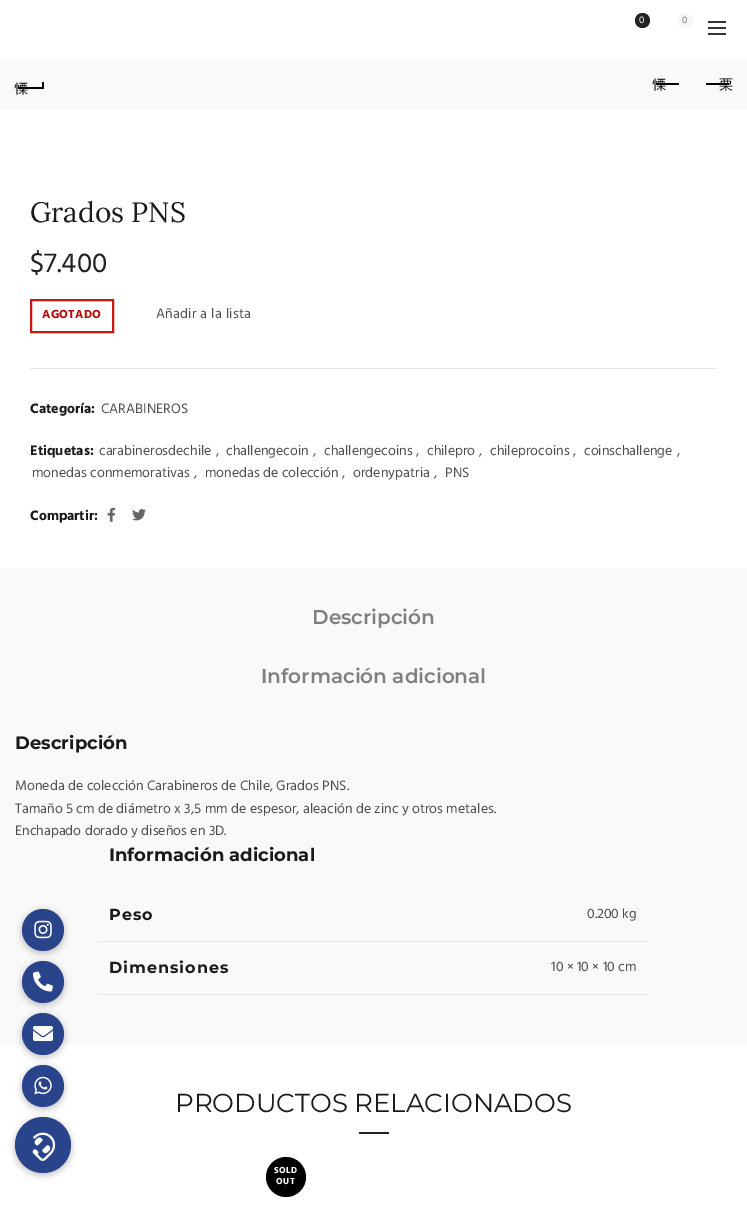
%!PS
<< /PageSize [747 1209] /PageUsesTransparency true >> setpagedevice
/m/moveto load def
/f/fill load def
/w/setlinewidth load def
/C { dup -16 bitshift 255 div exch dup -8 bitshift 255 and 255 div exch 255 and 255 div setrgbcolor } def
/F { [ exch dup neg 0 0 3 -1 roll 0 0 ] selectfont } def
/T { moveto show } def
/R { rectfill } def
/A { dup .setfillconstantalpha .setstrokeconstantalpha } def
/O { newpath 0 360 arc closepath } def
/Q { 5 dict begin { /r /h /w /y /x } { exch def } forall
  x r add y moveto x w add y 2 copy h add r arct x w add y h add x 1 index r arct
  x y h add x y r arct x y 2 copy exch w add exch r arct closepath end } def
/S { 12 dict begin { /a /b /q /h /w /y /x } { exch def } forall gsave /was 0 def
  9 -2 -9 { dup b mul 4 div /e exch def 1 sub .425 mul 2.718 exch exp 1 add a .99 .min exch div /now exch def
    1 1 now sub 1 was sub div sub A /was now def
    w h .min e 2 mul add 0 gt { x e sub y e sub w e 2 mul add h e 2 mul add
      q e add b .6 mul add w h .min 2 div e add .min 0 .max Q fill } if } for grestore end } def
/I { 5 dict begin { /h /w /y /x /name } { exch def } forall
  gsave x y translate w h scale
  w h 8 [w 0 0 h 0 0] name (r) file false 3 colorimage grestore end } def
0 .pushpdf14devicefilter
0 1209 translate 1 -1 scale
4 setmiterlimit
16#FFFFFF C
0 0 747 1209 R
16#212121 C
642.5 20.5 7.5 O f
/Hind-Regular 10 F
16#FFFFFF C
(0) 639 23 T
16#F7F7F7 C
685.5 20.5 7.5 O f
16#7E7E7E C
(0) 682 23 T
16#333333 C
708 27 18 2 R
708 21 18 2 R
708 33 18 2 R
16#F9F9F9 C
0 60 747 50 R
16#000000 C
18 87 25 2 R
/WenQuanYiZenHei-Medium 14 F
(慄) 14 93 T
42 82 2 7 R
656 83 23 2 R
(慄) 652 89 T
706 83 23 2 R
(栗) 719 89 T
/Lora-Regular 28 F
16#1B1919 C
(Grados PNS) 30 222 T
/Hind-Regular 28 F
16#212121 C
($7.400) 30 272 T
16#CC1414 C
2 w
31 300 82 32 rectstroke
/Hind-Bold 12 F
16#B50808 C
42 318 m .25 0 (AGOTADO) ashow
/Hind-Regular 14 F
16#4E4E4E C
156 318 m .25 0 (Añadir a la lista) ashow
16#E8E8E8 C
30 368 687 1 R
/Hind-Bold 14 F
16#1B1919 C
(Categoría:) 30 413 T
/Hind-Regular 14 F
16#4E4E4E C
(CARABINEROS) 101 413 T
/Hind-Bold 14 F
16#1B1919 C
(Etiquetas:) 30 455 T
/Hind-Regular 14 F
16#4E4E4E C
(carabinerosdechile) 99 455 T
(,) 216 455 T
(challengecoin) 226 455 T
(,) 313 455 T
(challengecoins) 324 455 T
(,) 416 455 T
(chilepro) 427 455 T
(,) 479 455 T
(chileprocoins) 490 455 T
(,) 573 455 T
(coinschallenge) 584 455 T
(,) 677 455 T
(monedas conmemorativas) 32 477 T
(,) 194 477 T
(monedas de colección) 205 477 T
(,) 342 477 T
(ordenypatria) 353 477 T
(,) 434 477 T
(PNS) 445 477 T
/Hind-Bold 14 F
16#1B1919 C
(Compartir:) 30 520 T
(1.rgb) 107 507 9 15 I
(2.rgb) 132 509 14 12 I
16#F9F9F9 C
0 568 747 477 R
/Montserrat-SemiBold 20 F
16#7E7E7E C
(Descripción) 312 624 T
(Información adicional) 261 683 T
/Montserrat-Bold 18 F
16#1B1919 C
(Descripción) 15 749 T
/Hind-Regular 14 F
16#4E4E4E C
(Moneda de colección Carabineros de Chile, Grados PNS.) 15 790 T
(Tamaño 5 cm de diámetro x 3,5 mm de espesor, aleación de zinc y otros metales.) 15 813 T
(Enchapado dorado y diseños en 3D.) 15 835 T
/Montserrat-Bold 18 F
16#1B1919 C
(Información adicional) 109 861 T
/Montserrat-Bold 16 F
109 920 m 1 0 (Peso) ashow
16#E6E6E6 C
98 941 551 1 R
/Hind-Regular 14 F
16#4E4E4E C
(0.200 kg) 587 918 T
/Montserrat-Bold 16 F
16#1B1919 C
109 973 m 1 0 (Dimensiones) ashow
16#E6E6E6 C
98 994 551 1 R
/Hind-Regular 14 F
16#4E4E4E C
(10 × 10 × 10 cm) 551 971 T
/Montserrat-Regular 26 F
16#1B1919 C
(PRODUCTOS RELACIONADOS) 175 1112 T
16#212121 C
359 1132 30 2 R
16#000000 C
286 1177 20 O f
/Hind-Bold 9 F
16#FFFFFF C
274 1173 m .5 0 (SOLD) ashow
276 1184 m .5 0 (OUT) ashow
16#000000 C
21 1066 44 44 22 3 .2 S
16#29448B C
43 1086 21 O f
16#000000 C
21 1014 44 44 22 3 .2 S
16#29448B C
43 1034 21 O f
16#000000 C
21 962 44 44 22 3 .2 S
16#29448B C
43 982 21 O f
16#000000 C
21 910 44 44 22 3 .2 S
16#29448B C
43 930 21 O f
(3.rgb) 34 920 18 19 I
(4.rgb) 33 971 20 21 I
(5.rgb) 33 1026 20 15 I
(6.rgb) 34 1076 18 19 I
16#000000 C
14 1118 58 58 29 3 .2 S
16#29448B C
43 1145 28 O f
(7.rgb) 32 1132 24 29 I
.poppdf14devicefilter showpage
